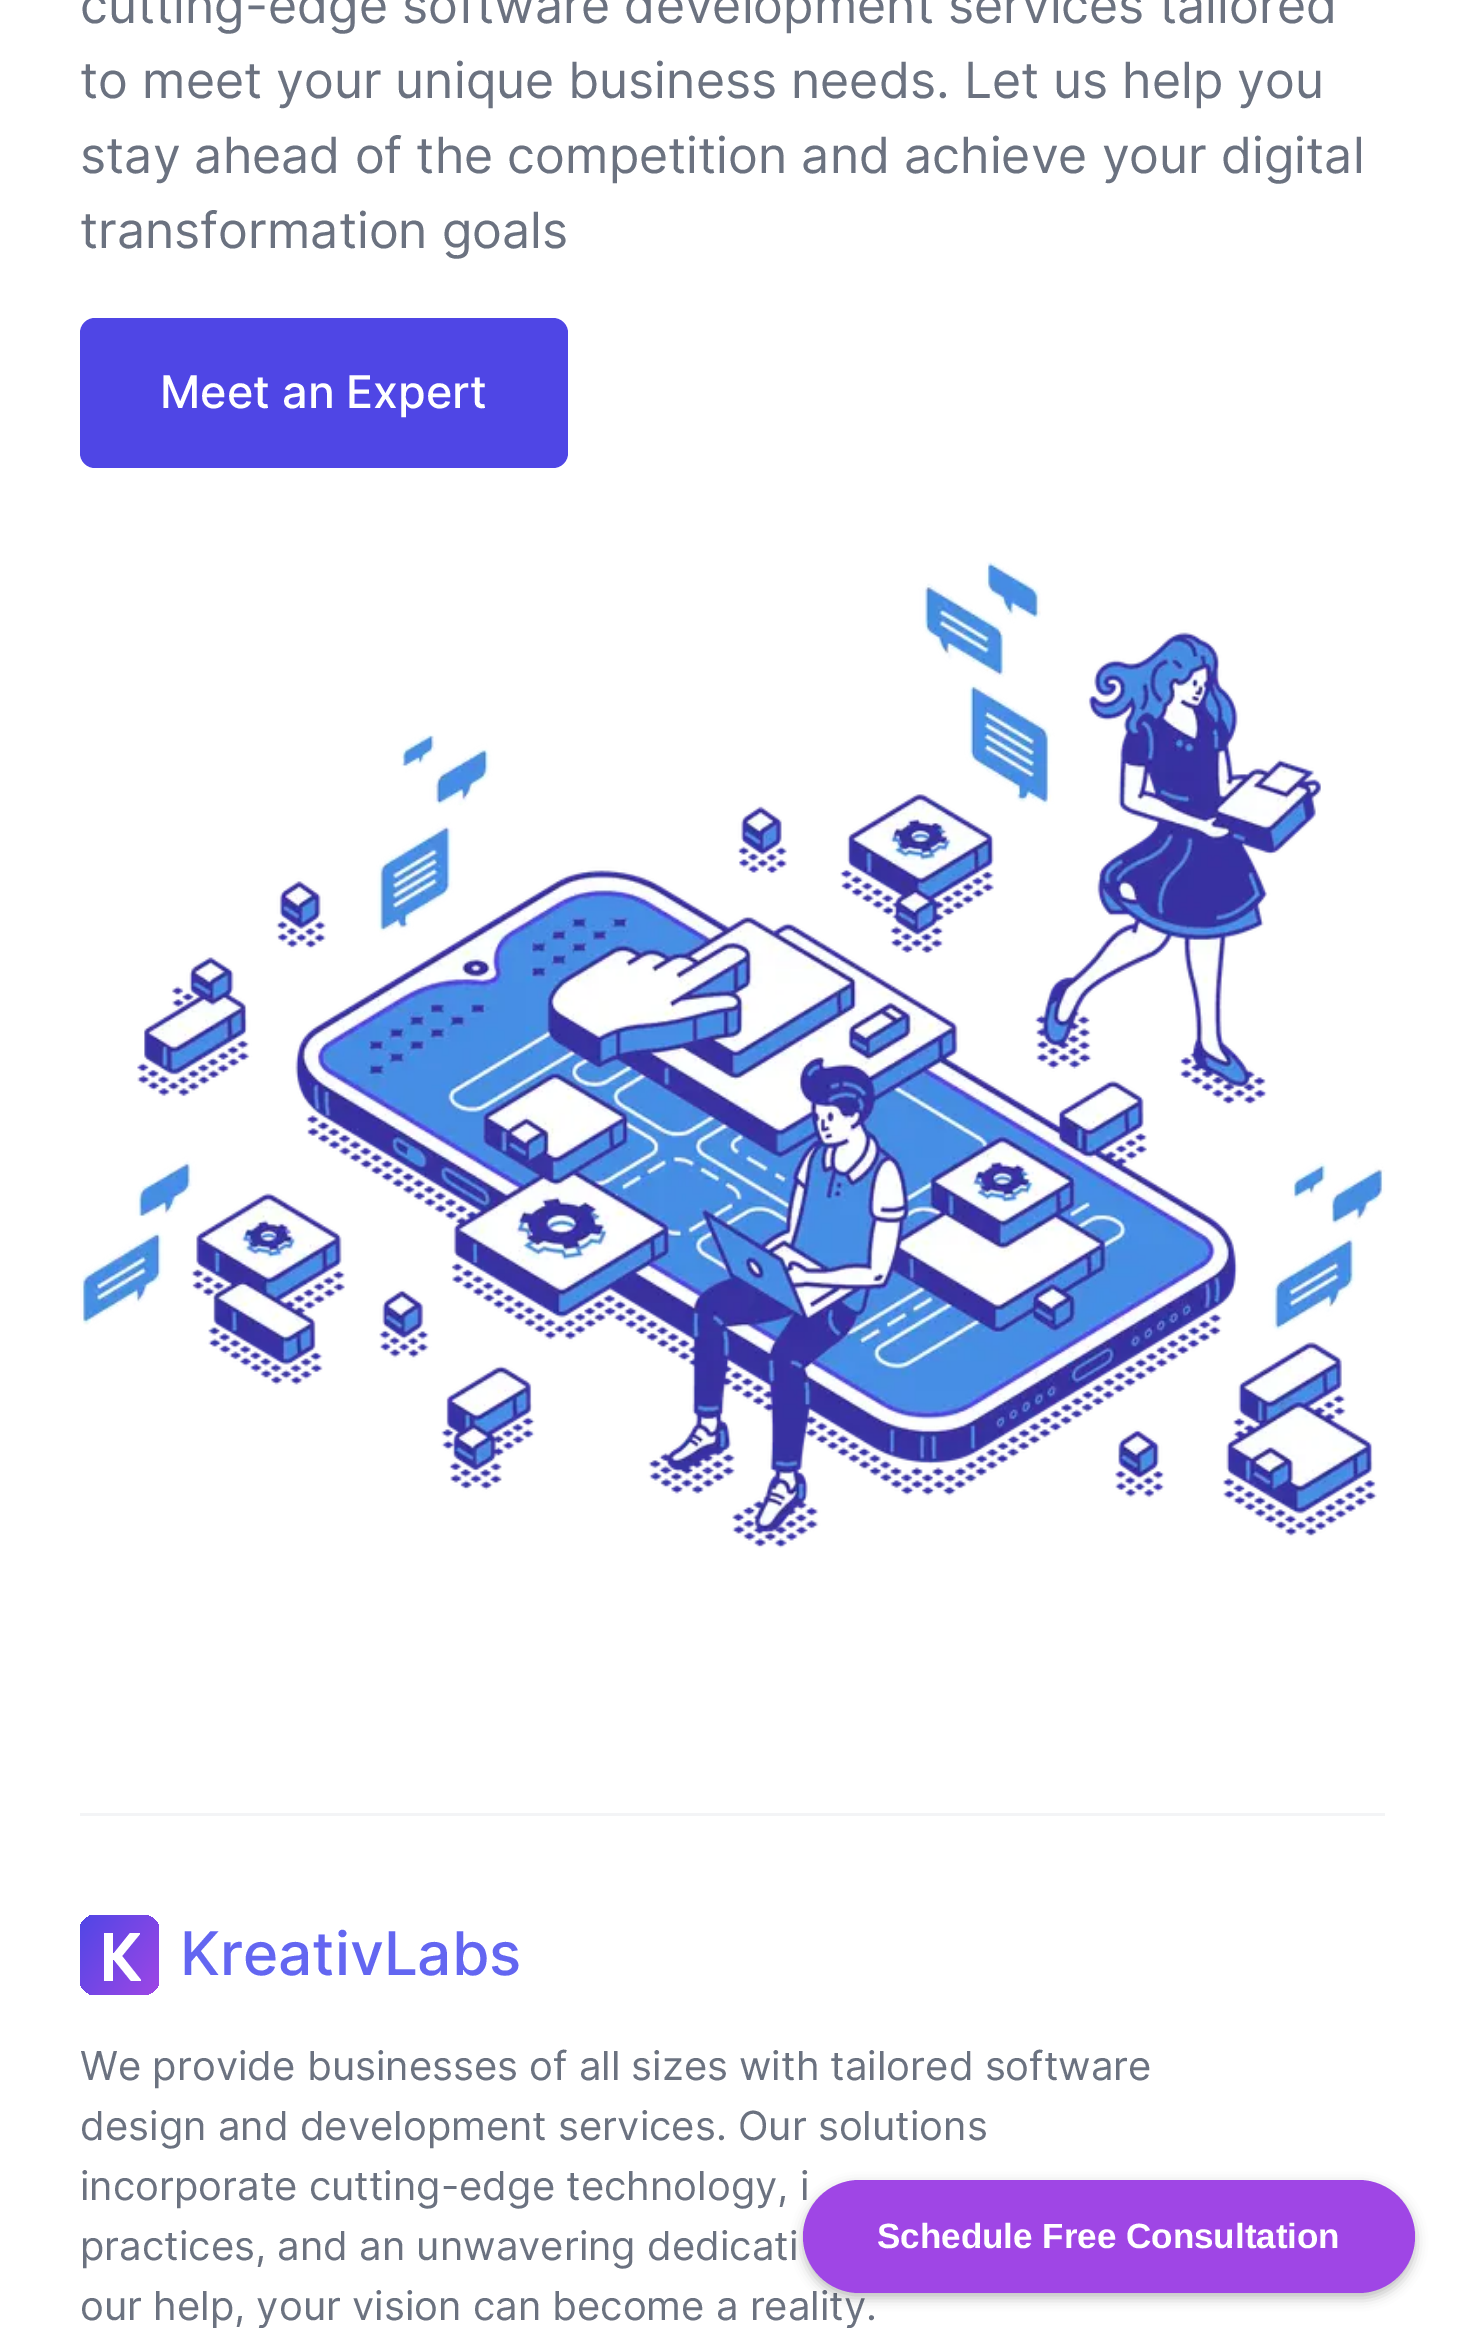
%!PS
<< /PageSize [1464 2328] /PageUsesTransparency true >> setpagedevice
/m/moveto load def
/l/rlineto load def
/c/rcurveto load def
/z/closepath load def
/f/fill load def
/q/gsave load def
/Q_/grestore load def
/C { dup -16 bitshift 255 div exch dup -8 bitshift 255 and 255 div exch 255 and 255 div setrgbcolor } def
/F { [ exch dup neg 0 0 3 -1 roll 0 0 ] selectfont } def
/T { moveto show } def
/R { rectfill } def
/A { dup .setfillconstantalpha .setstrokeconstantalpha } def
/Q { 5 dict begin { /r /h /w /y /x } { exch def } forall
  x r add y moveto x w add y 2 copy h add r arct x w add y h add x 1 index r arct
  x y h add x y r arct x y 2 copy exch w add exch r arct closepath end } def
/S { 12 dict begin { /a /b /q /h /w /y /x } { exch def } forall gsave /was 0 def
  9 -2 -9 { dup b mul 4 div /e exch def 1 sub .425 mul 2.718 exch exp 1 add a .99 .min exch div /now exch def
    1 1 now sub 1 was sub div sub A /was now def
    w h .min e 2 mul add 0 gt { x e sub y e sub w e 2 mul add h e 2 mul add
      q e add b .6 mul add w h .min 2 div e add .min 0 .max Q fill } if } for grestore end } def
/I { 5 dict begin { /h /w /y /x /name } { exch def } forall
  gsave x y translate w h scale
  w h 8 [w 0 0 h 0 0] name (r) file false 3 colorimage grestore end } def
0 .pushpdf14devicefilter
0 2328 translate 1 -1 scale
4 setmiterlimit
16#FFFFFF C
0 0 1464 2328 R
/Inter-Regular 50 F
16#6B7280 C
(cutting-edge software development services tailored) 80 23 T
(to meet your unique business needs. Let us help you) 80 98 T
(stay ahead of the competition and achieve your digital) 80 173 T
(transformation goals) 80 248 T
16#4F46E5 C
80 318 488 150 15 Q f
/Inter-Medium 45 F
16#FFFFFF C
(Meet an Expert) 160 408 T
(1.rgb) 80 561 1305 987 I
16#F3F4F6 C
80 1813 1305 3 R
q 143 1995 m 8 0 14 -5 16 -12 c 0 -56 l -2 -7 -8 -12 -16 -12 c -48 0 l -7 0 -13 5 -15 12 c 0 56 l 2 7 8 12 15 12 c z clip newpath
<< /ShadingType 2 /ColorSpace /DeviceRGB /Coords [74 1923 165 1987] /Extend [true true] /Function << /FunctionType 3 /Domain [0 1] /Functions [<< /FunctionType 2 /Domain [0 1] /C0 [.31 .275 .898] /C1 [.314 .275 .898] /N 1 >> << /FunctionType 2 /Domain [0 1] /C0 [.314 .275 .898] /C1 [.314 .275 .898] /N 1 >> << /FunctionType 2 /Domain [0 1] /C0 [.318 .275 .898] /C1 [.322 .275 .898] /N 1 >> << /FunctionType 2 /Domain [0 1] /C0 [.322 .275 .898] /C1 [.322 .275 .898] /N 1 >> << /FunctionType 2 /Domain [0 1] /C0 [.322 .275 .898] /C1 [.325 .275 .898] /N 1 >> << /FunctionType 2 /Domain [0 1] /C0 [.325 .275 .898] /C1 [.329 .275 .898] /N 1 >> << /FunctionType 2 /Domain [0 1] /C0 [.329 .275 .898] /C1 [.333 .275 .898] /N 1 >> << /FunctionType 2 /Domain [0 1] /C0 [.333 .275 .898] /C1 [.333 .275 .898] /N 1 >> << /FunctionType 2 /Domain [0 1] /C0 [.333 .275 .898] /C1 [.337 .275 .898] /N 1 >> << /FunctionType 2 /Domain [0 1] /C0 [.341 .275 .898] /C1 [.341 .275 .898] /N 1 >> << /FunctionType 2 /Domain [0 1] /C0 [.341 .275 .898] /C1 [.345 .275 .898] /N 1 >> << /FunctionType 2 /Domain [0 1] /C0 [.345 .275 .898] /C1 [.345 .275 .898] /N 1 >> << /FunctionType 2 /Domain [0 1] /C0 [.349 .275 .898] /C1 [.353 .275 .898] /N 1 >> << /FunctionType 2 /Domain [0 1] /C0 [.353 .275 .898] /C1 [.353 .275 .898] /N 1 >> << /FunctionType 2 /Domain [0 1] /C0 [.353 .275 .898] /C1 [.357 .275 .898] /N 1 >> << /FunctionType 2 /Domain [0 1] /C0 [.357 .275 .898] /C1 [.361 .275 .898] /N 1 >> << /FunctionType 2 /Domain [0 1] /C0 [.361 .275 .898] /C1 [.365 .275 .898] /N 1 >> << /FunctionType 2 /Domain [0 1] /C0 [.365 .275 .898] /C1 [.365 .275 .898] /N 1 >> << /FunctionType 2 /Domain [0 1] /C0 [.365 .275 .898] /C1 [.369 .275 .898] /N 1 >> << /FunctionType 2 /Domain [0 1] /C0 [.369 .275 .898] /C1 [.373 .275 .898] /N 1 >> << /FunctionType 2 /Domain [0 1] /C0 [.373 .275 .898] /C1 [.376 .275 .898] /N 1 >> << /FunctionType 2 /Domain [0 1] /C0 [.376 .275 .898] /C1 [.38 .275 .898] /N 1 >> << /FunctionType 2 /Domain [0 1] /C0 [.38 .275 .898] /C1 [.38 .275 .898] /N 1 >> << /FunctionType 2 /Domain [0 1] /C0 [.384 .275 .898] /C1 [.384 .275 .898] /N 1 >> << /FunctionType 2 /Domain [0 1] /C0 [.384 .275 .898] /C1 [.388 .275 .898] /N 1 >> << /FunctionType 2 /Domain [0 1] /C0 [.388 .275 .898] /C1 [.392 .275 .898] /N 1 >> << /FunctionType 2 /Domain [0 1] /C0 [.392 .275 .898] /C1 [.392 .275 .898] /N 1 >> << /FunctionType 2 /Domain [0 1] /C0 [.396 .275 .898] /C1 [.396 .275 .898] /N 1 >> << /FunctionType 2 /Domain [0 1] /C0 [.396 .275 .898] /C1 [.4 .275 .898] /N 1 >> << /FunctionType 2 /Domain [0 1] /C0 [.4 .275 .898] /C1 [.404 .275 .898] /N 1 >> << /FunctionType 2 /Domain [0 1] /C0 [.404 .275 .898] /C1 [.408 .275 .898] /N 1 >> << /FunctionType 2 /Domain [0 1] /C0 [.408 .275 .898] /C1 [.412 .275 .898] /N 1 >> << /FunctionType 2 /Domain [0 1] /C0 [.412 .275 .898] /C1 [.412 .275 .898] /N 1 >> << /FunctionType 2 /Domain [0 1] /C0 [.412 .275 .898] /C1 [.416 .275 .898] /N 1 >> << /FunctionType 2 /Domain [0 1] /C0 [.416 .275 .898] /C1 [.42 .275 .898] /N 1 >> << /FunctionType 2 /Domain [0 1] /C0 [.42 .275 .898] /C1 [.424 .275 .898] /N 1 >> << /FunctionType 2 /Domain [0 1] /C0 [.424 .275 .898] /C1 [.424 .275 .898] /N 1 >> << /FunctionType 2 /Domain [0 1] /C0 [.424 .275 .898] /C1 [.427 .275 .898] /N 1 >> << /FunctionType 2 /Domain [0 1] /C0 [.431 .275 .898] /C1 [.431 .275 .898] /N 1 >> << /FunctionType 2 /Domain [0 1] /C0 [.431 .275 .898] /C1 [.435 .275 .898] /N 1 >> << /FunctionType 2 /Domain [0 1] /C0 [.435 .275 .898] /C1 [.435 .275 .898] /N 1 >> << /FunctionType 2 /Domain [0 1] /C0 [.439 .275 .898] /C1 [.443 .275 .898] /N 1 >> << /FunctionType 2 /Domain [0 1] /C0 [.443 .275 .898] /C1 [.443 .275 .898] /N 1 >> << /FunctionType 2 /Domain [0 1] /C0 [.443 .275 .898] /C1 [.447 .275 .898] /N 1 >> << /FunctionType 2 /Domain [0 1] /C0 [.447 .275 .898] /C1 [.451 .275 .898] /N 1 >> << /FunctionType 2 /Domain [0 1] /C0 [.451 .275 .898] /C1 [.455 .275 .898] /N 1 >> << /FunctionType 2 /Domain [0 1] /C0 [.455 .275 .898] /C1 [.455 .275 .898] /N 1 >> << /FunctionType 2 /Domain [0 1] /C0 [.455 .275 .898] /C1 [.459 .275 .898] /N 1 >> << /FunctionType 2 /Domain [0 1] /C0 [.463 .275 .898] /C1 [.463 .275 .898] /N 1 >> << /FunctionType 2 /Domain [0 1] /C0 [.463 .275 .898] /C1 [.467 .275 .898] /N 1 >> << /FunctionType 2 /Domain [0 1] /C0 [.467 .275 .898] /C1 [.471 .275 .898] /N 1 >> << /FunctionType 2 /Domain [0 1] /C0 [.471 .275 .898] /C1 [.471 .275 .898] /N 1 >> << /FunctionType 2 /Domain [0 1] /C0 [.475 .275 .898] /C1 [.475 .275 .898] /N 1 >> << /FunctionType 2 /Domain [0 1] /C0 [.475 .275 .898] /C1 [.478 .275 .898] /N 1 >> << /FunctionType 2 /Domain [0 1] /C0 [.478 .275 .898] /C1 [.482 .275 .898] /N 1 >> << /FunctionType 2 /Domain [0 1] /C0 [.482 .275 .898] /C1 [.486 .275 .898] /N 1 >> << /FunctionType 2 /Domain [0 1] /C0 [.486 .275 .898] /C1 [.49 .275 .898] /N 1 >> << /FunctionType 2 /Domain [0 1] /C0 [.49 .275 .898] /C1 [.49 .275 .898] /N 1 >> << /FunctionType 2 /Domain [0 1] /C0 [.49 .275 .898] /C1 [.494 .275 .898] /N 1 >> << /FunctionType 2 /Domain [0 1] /C0 [.498 .275 .898] /C1 [.498 .275 .898] /N 1 >> << /FunctionType 2 /Domain [0 1] /C0 [.498 .275 .898] /C1 [.502 .275 .898] /N 1 >> << /FunctionType 2 /Domain [0 1] /C0 [.502 .275 .898] /C1 [.502 .275 .898] /N 1 >> << /FunctionType 2 /Domain [0 1] /C0 [.506 .275 .898] /C1 [.51 .275 .898] /N 1 >> << /FunctionType 2 /Domain [0 1] /C0 [.51 .275 .898] /C1 [.51 .275 .898] /N 1 >> << /FunctionType 2 /Domain [0 1] /C0 [.51 .275 .898] /C1 [.514 .275 .898] /N 1 >> << /FunctionType 2 /Domain [0 1] /C0 [.514 .275 .898] /C1 [.514 .275 .898] /N 1 >> << /FunctionType 2 /Domain [0 1] /C0 [.518 .275 .898] /C1 [.522 .275 .898] /N 1 >> << /FunctionType 2 /Domain [0 1] /C0 [.522 .275 .898] /C1 [.522 .275 .898] /N 1 >> << /FunctionType 2 /Domain [0 1] /C0 [.522 .275 .898] /C1 [.525 .275 .898] /N 1 >> << /FunctionType 2 /Domain [0 1] /C0 [.525 .275 .898] /C1 [.529 .275 .898] /N 1 >> << /FunctionType 2 /Domain [0 1] /C0 [.529 .275 .898] /C1 [.533 .275 .898] /N 1 >> << /FunctionType 2 /Domain [0 1] /C0 [.533 .275 .898] /C1 [.533 .275 .898] /N 1 >> << /FunctionType 2 /Domain [0 1] /C0 [.533 .275 .898] /C1 [.537 .275 .898] /N 1 >> << /FunctionType 2 /Domain [0 1] /C0 [.541 .275 .898] /C1 [.541 .275 .898] /N 1 >> << /FunctionType 2 /Domain [0 1] /C0 [.541 .275 .898] /C1 [.545 .275 .898] /N 1 >> << /FunctionType 2 /Domain [0 1] /C0 [.545 .275 .898] /C1 [.545 .275 .898] /N 1 >> << /FunctionType 2 /Domain [0 1] /C0 [.545 .275 .898] /C1 [.549 .275 .898] /N 1 >> << /FunctionType 2 /Domain [0 1] /C0 [.553 .275 .898] /C1 [.553 .275 .898] /N 1 >> << /FunctionType 2 /Domain [0 1] /C0 [.553 .275 .898] /C1 [.557 .275 .898] /N 1 >> << /FunctionType 2 /Domain [0 1] /C0 [.557 .275 .898] /C1 [.561 .275 .898] /N 1 >> << /FunctionType 2 /Domain [0 1] /C0 [.561 .275 .898] /C1 [.565 .275 .898] /N 1 >> << /FunctionType 2 /Domain [0 1] /C0 [.565 .275 .898] /C1 [.565 .275 .898] /N 1 >> << /FunctionType 2 /Domain [0 1] /C0 [.565 .275 .898] /C1 [.569 .275 .898] /N 1 >> << /FunctionType 2 /Domain [0 1] /C0 [.569 .275 .898] /C1 [.573 .275 .898] /N 1 >> << /FunctionType 2 /Domain [0 1] /C0 [.573 .275 .898] /C1 [.576 .275 .898] /N 1 >> << /FunctionType 2 /Domain [0 1] /C0 [.576 .275 .898] /C1 [.58 .275 .898] /N 1 >> << /FunctionType 2 /Domain [0 1] /C0 [.58 .275 .898] /C1 [.58 .275 .898] /N 1 >> << /FunctionType 2 /Domain [0 1] /C0 [.58 .275 .898] /C1 [.584 .275 .898] /N 1 >> << /FunctionType 2 /Domain [0 1] /C0 [.584 .275 .898] /C1 [.588 .275 .898] /N 1 >> << /FunctionType 2 /Domain [0 1] /C0 [.588 .275 .898] /C1 [.592 .275 .898] /N 1 >> << /FunctionType 2 /Domain [0 1] /C0 [.592 .275 .898] /C1 [.592 .275 .898] /N 1 >> << /FunctionType 2 /Domain [0 1] /C0 [.596 .275 .898] /C1 [.6 .275 .898] /N 1 >> << /FunctionType 2 /Domain [0 1] /C0 [.6 .275 .898] /C1 [.6 .275 .898] /N 1 >> << /FunctionType 2 /Domain [0 1] /C0 [.6 .275 .898] /C1 [.604 .275 .898] /N 1 >> << /FunctionType 2 /Domain [0 1] /C0 [.604 .275 .898] /C1 [.604 .275 .898] /N 1 >> << /FunctionType 2 /Domain [0 1] /C0 [.608 .275 .898] /C1 [.612 .275 .898] /N 1 >> << /FunctionType 2 /Domain [0 1] /C0 [.612 .275 .898] /C1 [.612 .275 .898] /N 1 >> << /FunctionType 2 /Domain [0 1] /C0 [.612 .275 .898] /C1 [.616 .275 .898] /N 1 >> << /FunctionType 2 /Domain [0 1] /C0 [.62 .275 .898] /C1 [.62 .275 .898] /N 1 >> << /FunctionType 2 /Domain [0 1] /C0 [.62 .275 .898] /C1 [.624 .275 .898] /N 1 >>] /Bounds [.01 .02 .03 .04 .05 .06 .07 .08 .09 .1 .11 .12 .13 .14 .15 .16 .17 .18 .19 .2 .21 .22 .23 .24 .25 .26 .27 .28 .29 .3 .31 .32 .33 .34 .35 .36 .37 .38 .39 .4 .41 .42 .43 .44 .45 .46 .47 .48 .49 .5 .51 .52 .53 .54 .55 .56 .57 .58 .59 .6 .61 .62 .63 .64 .65 .66 .67 .68 .69 .7 .71 .72 .73 .74 .75 .76 .77 .78 .79 .8 .81 .82 .83 .84 .85 .86 .87 .88 .89 .9 .91 .92 .93 .94 .95 .96 .97 .98 .99] /Encode [0 1 0 1 0 1 0 1 0 1 0 1 0 1 0 1 0 1 0 1 0 1 0 1 0 1 0 1 0 1 0 1 0 1 0 1 0 1 0 1 0 1 0 1 0 1 0 1 0 1 0 1 0 1 0 1 0 1 0 1 0 1 0 1 0 1 0 1 0 1 0 1 0 1 0 1 0 1 0 1 0 1 0 1 0 1 0 1 0 1 0 1 0 1 0 1 0 1 0 1 0 1 0 1 0 1 0 1 0 1 0 1 0 1 0 1 0 1 0 1 0 1 0 1 0 1 0 1 0 1 0 1 0 1 0 1 0 1 0 1 0 1 0 1 0 1 0 1 0 1 0 1 0 1 0 1 0 1 0 1 0 1 0 1 0 1 0 1 0 1 0 1 0 1 0 1 0 1 0 1 0 1 0 1 0 1 0 1 0 1 0 1 0 1 0 1 0 1 0 1] >> >> shfill Q_
16#FFFFFF C
104 1981 m 0 -48 l 9 0 l 0 20 l 1 0 l 16 -20 l 10 0 l 0 1 l -18 22 l 19 24 l 0 1 l -10 0 l -17 -21 l -1 0 l 0 21 l z f
/Inter-Medium 60 F
16#6366F1 C
(KreativLabs) 180 1975 T
/Inter-Regular 40 F
16#6B7280 C
(We provide businesses of all sizes with tailored software) 80 2080 T
(design and development services. Our solutions) 80 2140 T
(incorporate cutting-edge technology, i) 80 2200 T
(practices, and an unwavering dedicati) 80 2260 T
(our help, your vision can become a reality.) 80 2320 T
16#000000 C
803 2185 612 113 56.5 6 .25 S
16#9F46E5 C
803 2180 612 113 56.5 Q f
/LiberationSans-Bold 35 F
16#FFFFFF C
(Schedule Free Consultation) 877 2248 T
.poppdf14devicefilter showpage
